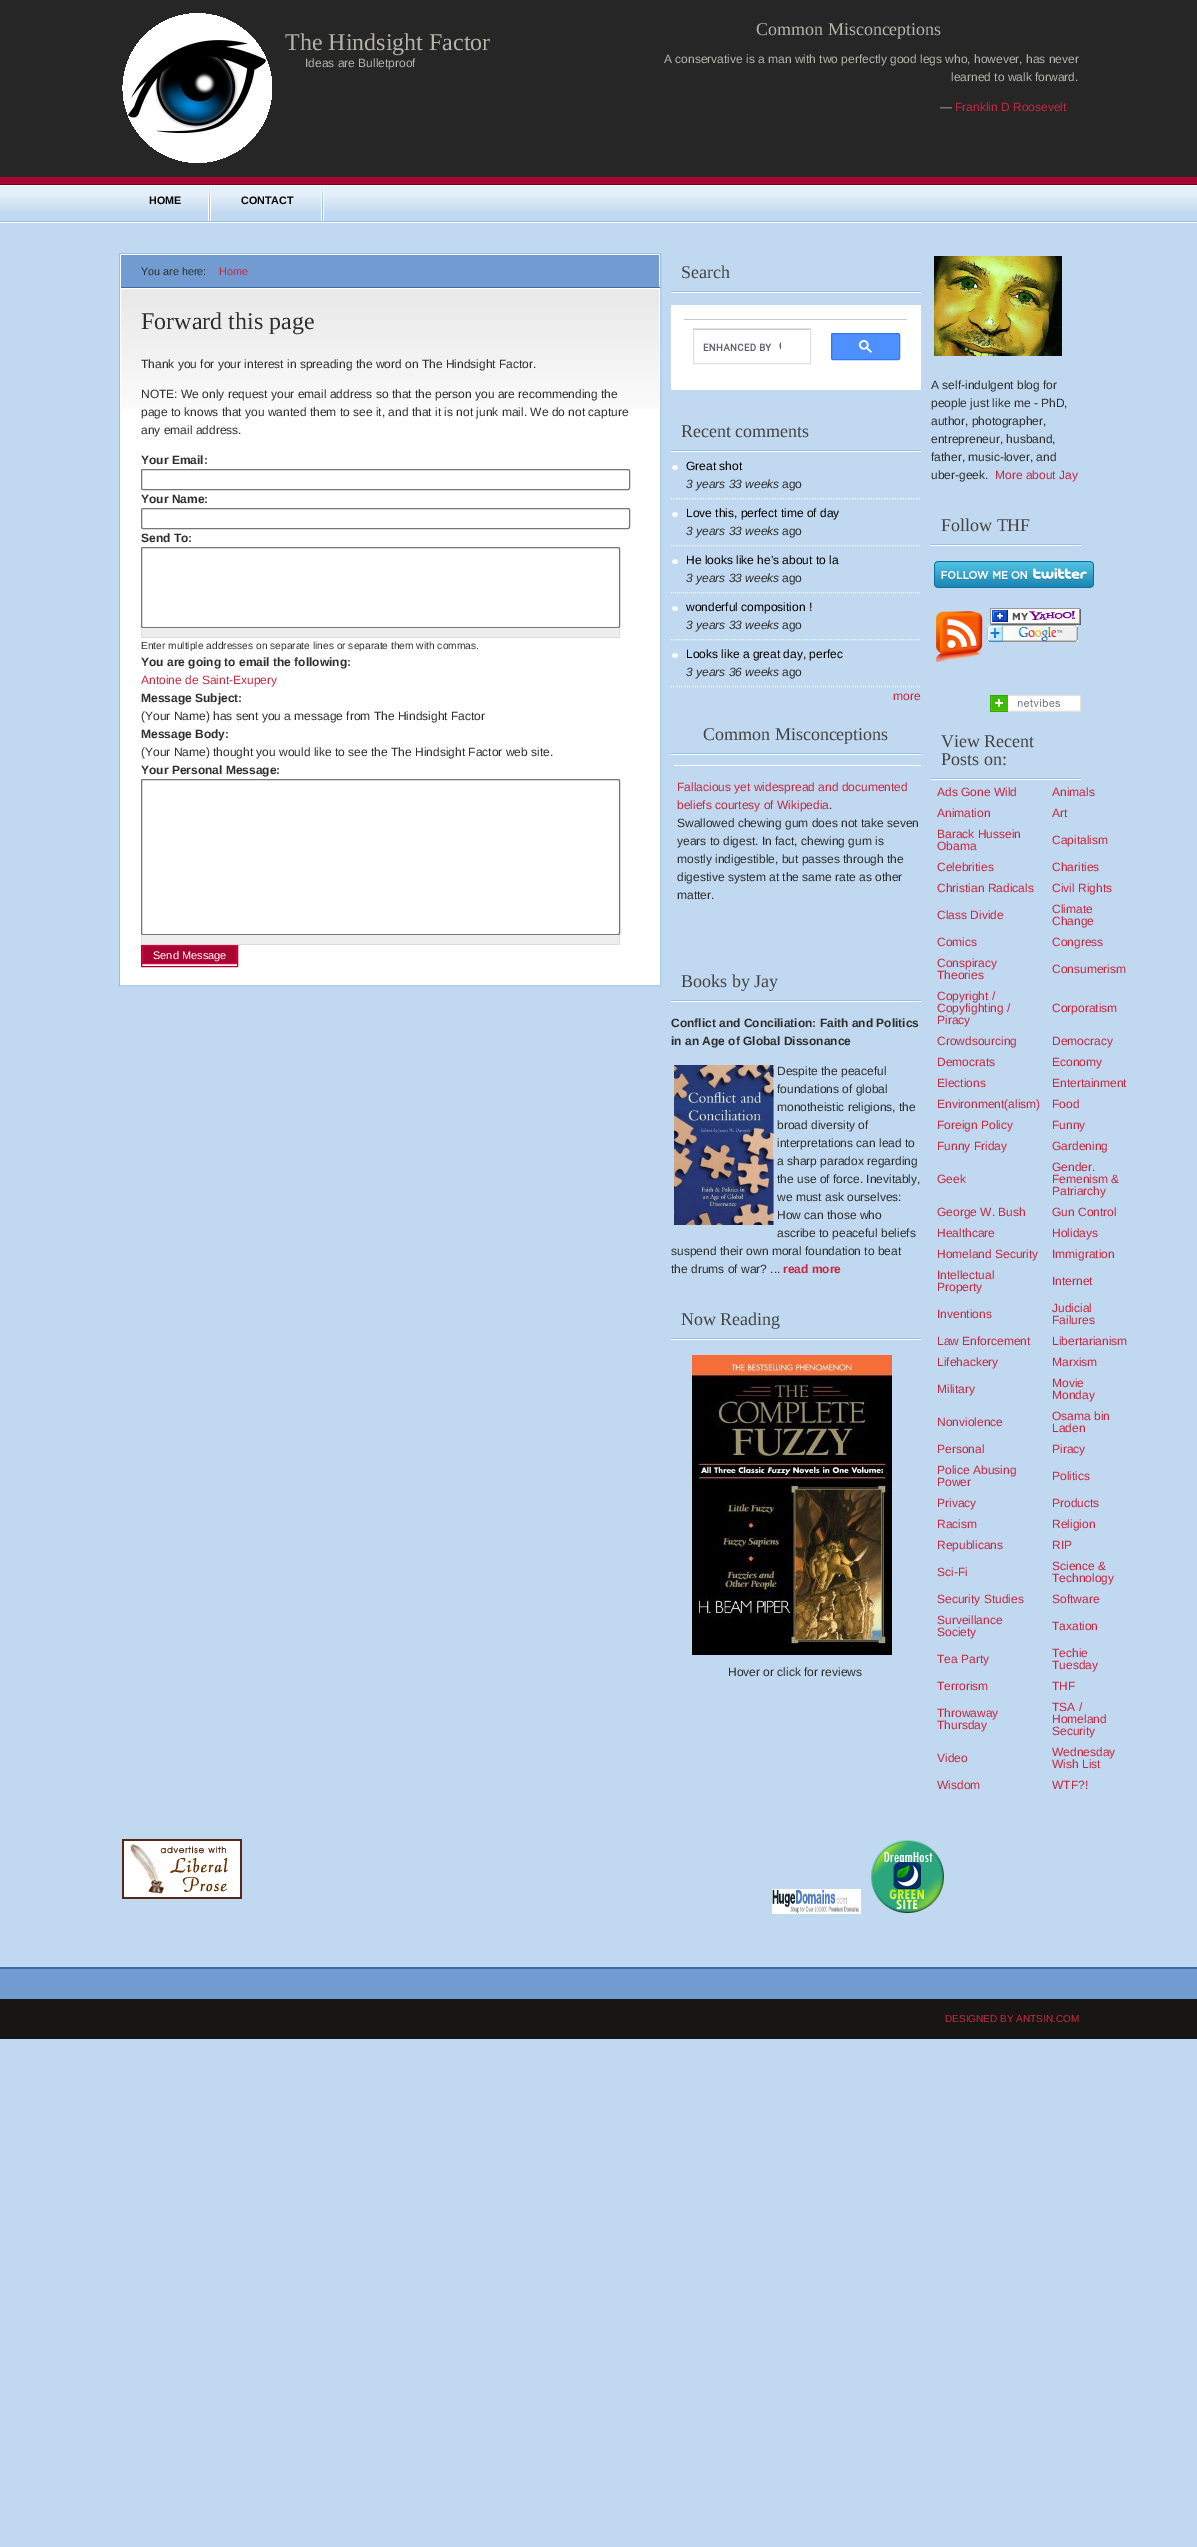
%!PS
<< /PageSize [1197 2547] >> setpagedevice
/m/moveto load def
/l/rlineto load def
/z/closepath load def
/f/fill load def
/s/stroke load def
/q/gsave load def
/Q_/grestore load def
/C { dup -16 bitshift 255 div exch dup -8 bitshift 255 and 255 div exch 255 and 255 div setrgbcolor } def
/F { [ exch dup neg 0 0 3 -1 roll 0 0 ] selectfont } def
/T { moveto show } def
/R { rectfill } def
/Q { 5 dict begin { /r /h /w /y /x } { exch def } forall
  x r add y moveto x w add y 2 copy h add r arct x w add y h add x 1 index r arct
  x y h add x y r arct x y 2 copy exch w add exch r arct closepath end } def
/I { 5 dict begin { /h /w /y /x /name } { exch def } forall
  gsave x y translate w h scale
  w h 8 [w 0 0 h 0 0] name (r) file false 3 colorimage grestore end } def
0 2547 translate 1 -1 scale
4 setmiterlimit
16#C0D8F0 C
0 0 1197 2547 R
16#272626 C
0 0 1197 177 R
(1.rgb) 122 13 150 150 I
/LiberationSerif-Regular 24 F
16#B5B4AA C
(The Hindsight Factor) 285 50 T
/LiberationSans-Regular 12 F
(Ideas are Bulletproof) 305 67 T
/LiberationSerif-Regular 18 F
(Common Misconceptions) 756 35 T
/LiberationSans-Regular 12 F
(A conservative is a man with two perfectly good legs who, however, has never) 664 63 T
(learned to walk forward.) 951 81 T
(—) 940 111 T
16#C72840 C
(Franklin D Roosevelt) 955 111 T
16#A90532 C
0 177 1197 7 R
(2.rgb) 0 184 1197 38 I
(3.rgb) 208 187 3 34 I
/LiberationSans-Bold 10.75 F
16#000000 C
(HOME) 149 204 T
(3.rgb) 321 187 3 34 I
(CONTACT) 241 204 T
16#FFFFFF C
0 222 1197 1 R
16#96BFE6 C
119.5 253.5 541 732 rectstroke
16#719BD1 C
121 255 538 32 R
16#FFFFFF C
120 254 540 1 R
659 254 1 34 R
16#386DA8 C
120 287 540 1 R
16#FFFFFF C
120 254 1 34 R
/LiberationSans-Regular 10.75 F
16#2E2F2D C
(You are here:) 141 275 T
16#C72840 C
(Home) 219 275 T
16#FFFFFF C
121 409 538 575 R
(4.rgb) 121 289 538 120 I
120.5 288.5 539 696 rectstroke
/LiberationSerif-Regular 24 F
16#2E2F2D C
(Forward this page) 141 329 T
/LiberationSans-Regular 12 F
(Thank you for your interest in spreading the word on The Hindsight Factor.) 141 368 T
(NOTE: We only request your email address so that the person you are recommending the) 141 398 T
(page to knows that you wanted them to see it, and that it is not junk mail. We do not capture) 141 416 T
(any email address.) 141 434 T
/LiberationSans-Bold 12 F
(Your Email:) 141 464 T
16#767676 C
141.5 469.5 488 20 1.5 Q s
16#2E2F2D C
(Your Name:) 141 503 T
16#767676 C
141.5 508.5 488 20 1.5 Q s
16#2E2F2D C
(Send To:) 141 542 T
16#767676 C
141.5 547.5 478 80 1.5 Q s
16#EEEEEE C
142 628 477 9 R
16#DDDDDD C
619 628 1 10 R
141 637 479 1 R
141 628 1 10 R
/LiberationSans-Regular 10.2 F
16#2E2F2D C
(Enter multiple addresses on separate lines or separate them with commas.) 141 649 T
/LiberationSans-Bold 12 F
(You are going to email the following:) 141 666 T
/LiberationSans-Regular 12 F
16#C72840 C
(Antoine de Saint-Exupery) 141 684 T
/LiberationSans-Bold 12 F
16#2E2F2D C
(Message Subject:) 141 702 T
/LiberationSans-Regular 12 F
(\(Your Name\) has sent you a message from The Hindsight Factor) 141 720 T
/LiberationSans-Bold 12 F
(Message Body:) 141 738 T
/LiberationSans-Regular 12 F
(\(Your Name\) thought you would like to see the The Hindsight Factor web site.) 141 756 T
/LiberationSans-Bold 12 F
(Your Personal Message:) 141 774 T
16#767676 C
141.5 779.5 478 155 1.5 Q s
16#A90532 C
141.5 943.5 96 23 rectstroke
16#EEEEEE C
142 935 477 9 R
16#DDDDDD C
619 935 1 10 R
141 944 479 1 R
141 935 1 10 R
16#A90532 C
142.5 945.5 m 94 0 l 0 18 l -94 0 l z q f Q_
16#D8023F C
s
/LiberationSans-Regular 11 F
16#FFFFFF C
(Send Message) 153 959 T
671 292 250 1 R
16#96BFE6 C
671 291 250 1 R
/LiberationSerif-Regular 18 F
16#444444 C
(Search) 681 278 T
16#FFFFFF C
671 305 250 85 R
16#CCCCCC C
684 319 223 1 R
16#DFE1E5 C
693.5 328.5 117 35 rectstroke
16#CCCCCC C
693 329 117 1 R
(5.rgb) 703 342 78 9 I
16#4D90FE C
831.5 333.5 68 26 1.5 Q q f Q_
16#3079ED C
s
(6.rgb) 859 340 13 13 I
16#FFFFFF C
671 451 250 1 R
16#96BFE6 C
671 450 250 1 R
16#444444 C
(Recent comments) 681 437 T
(7.rgb) 672 465 6 5 I
16#FFFFFF C
[1 1] 0 setdash
671 498.5 m 250 0 l s
/LiberationSans-Regular 12 F
16#000000 C
(Great shot) 686 470 T
/LiberationSans-Italic 12 F
16#2E2F2D C
(3 years 33 weeks) 686 488 T
/LiberationSans-Regular 12 F
(ago) 782 488 T
(7.rgb) 672 512 6 5 I
16#FFFFFF C
671 545.5 m 250 0 l s
16#000000 C
(Love this, perfect time of day) 686 517 T
/LiberationSans-Italic 12 F
16#2E2F2D C
(3 years 33 weeks) 686 535 T
/LiberationSans-Regular 12 F
(ago) 782 535 T
(7.rgb) 672 559 6 5 I
16#FFFFFF C
671 592.5 m 250 0 l s
16#000000 C
(He looks like he's about to la) 686 564 T
/LiberationSans-Italic 12 F
16#2E2F2D C
(3 years 33 weeks) 686 582 T
/LiberationSans-Regular 12 F
(ago) 782 582 T
(7.rgb) 672 606 6 5 I
16#FFFFFF C
671 639.5 m 250 0 l s
16#000000 C
(wonderful composition !) 686 611 T
/LiberationSans-Italic 12 F
16#2E2F2D C
(3 years 33 weeks) 686 629 T
/LiberationSans-Regular 12 F
(ago) 782 629 T
(7.rgb) 672 653 6 5 I
16#FFFFFF C
671 686.5 m 250 0 l s
16#000000 C
(Looks like a great day, perfec) 686 658 T
/LiberationSans-Italic 12 F
16#2E2F2D C
(3 years 36 weeks) 686 676 T
/LiberationSans-Regular 12 F
(ago) 782 676 T
16#C72840 C
(more) 893 700 T
16#FFFFFF C
671 754 250 1 R
16#96BFE6 C
671 753 250 1 R
/LiberationSerif-Regular 18 F
16#444444 C
(Common Misconceptions) 703 740 T
16#FFFFFF C
674 765 247 1 R
/LiberationSans-Regular 12 F
16#C72840 C
(Fallacious yet widespread and documented) 677 791 T
(beliefs courtesy of Wikipedia) 677 809 T
16#2E2F2D C
(.) 829 809 T
(Swallowed chewing gum does not take seven) 677 827 T
(years to digest. In fact, chewing gum is) 677 845 T
(mostly indigestible, but passes through the) 677 863 T
(digestive system at the same rate as other) 677 881 T
(matter.) 677 899 T
16#FFFFFF C
671 1001 250 1 R
16#96BFE6 C
671 1000 250 1 R
/LiberationSerif-Regular 18 F
16#444444 C
(Books by Jay) 681 987 T
/LiberationSans-Bold 12 F
16#2E2F2D C
(Conflict and Conciliation: Faith and Politics) 671 1027 T
(in an Age of Global Dissonance) 671 1045 T
(8.rgb) 674 1065 100 160 I
/LiberationSans-Regular 12 F
(Despite the peaceful) 777 1075 T
(foundations of global) 777 1093 T
(monotheistic religions, the) 777 1111 T
(broad diversity of) 777 1129 T
(interpretations can lead to) 777 1147 T
(a sharp paradox regarding) 777 1165 T
(the use of force. Inevitably,) 777 1183 T
(we must ask ourselves:) 777 1201 T
(How can those who) 777 1219 T
(ascribe to peaceful beliefs) 777 1237 T
(suspend their own moral foundation to beat) 671 1255 T
(the drums of war? ...) 671 1273 T
/LiberationSans-Bold 12 F
16#C72840 C
(read more) 783 1273 T
16#FFFFFF C
671 1339 250 1 R
16#96BFE6 C
671 1338 250 1 R
/LiberationSerif-Regular 18 F
16#444444 C
(Now Reading) 681 1325 T
(9.rgb) 692 1355 200 300 I
/LiberationSans-Regular 12 F
16#2E2F2D C
(Hover or click for reviews) 728 1676 T
(10.rgb) 934 256 128 100 I
(A self-indulgent blog for) 931 389 T
(people just like me - PhD,) 931 407 T
(author, photographer,) 931 425 T
(entrepreneur, husband,) 931 443 T
(father, music-lover, and) 931 461 T
(uber-geek.) 931 479 T
16#C72840 C
(More about Jay) 995 479 T
16#FFFFFF C
931 545 150 1 R
16#96BFE6 C
931 544 150 1 R
/LiberationSerif-Regular 18 F
16#444444 C
(Follow THF) 941 531 T
(11.rgb) 934 561 160 27 I
(12.rgb) 935 611 48 51 I
(13.rgb) 990 608 91 17 I
(14.rgb) 987 625 91 17 I
(15.rgb) 990 695 91 17 I
16#FFFFFF C
931 779 150 1 R
16#96BFE6 C
931 778 150 1 R
16#444444 C
(View Recent) 941 747 T
(Posts on:) 941 765 T
/LiberationSans-Regular 12 F
16#C72840 C
(Ads Gone Wild) 937 796 T
(Animals) 1052 796 T
(Animation) 937 817 T
(Art) 1052 817 T
(Barack Hussein) 937 838 T
(Obama) 937 850 T
(Capitalism) 1052 844 T
(Celebrities) 937 871 T
(Charities) 1052 871 T
(Christian Radicals) 937 892 T
(Civil Rights) 1052 892 T
(Class Divide) 937 919 T
(Climate) 1052 913 T
(Change) 1052 925 T
(Comics) 937 946 T
(Congress) 1052 946 T
(Conspiracy) 937 967 T
(Theories) 937 979 T
(Consumerism) 1052 973 T
(Copyright /) 937 1000 T
(Copyfighting /) 937 1012 T
(Piracy) 937 1024 T
(Corporatism) 1052 1012 T
(Crowdsourcing) 937 1045 T
(Democracy) 1052 1045 T
(Democrats) 937 1066 T
(Economy) 1052 1066 T
(Elections) 937 1087 T
(Entertainment) 1052 1087 T
(Environment\(alism\)) 937 1108 T
(Food) 1052 1108 T
(Foreign Policy) 937 1129 T
(Funny) 1052 1129 T
(Funny Friday) 937 1150 T
(Gardening) 1052 1150 T
(Geek) 937 1183 T
(Gender.) 1052 1171 T
(Femenism &) 1052 1183 T
(Patriarchy) 1052 1195 T
(George W. Bush) 937 1216 T
(Gun Control) 1052 1216 T
(Healthcare) 937 1237 T
(Holidays) 1052 1237 T
(Homeland Security) 937 1258 T
(Immigration) 1052 1258 T
(Intellectual) 937 1279 T
(Property) 937 1291 T
(Internet) 1052 1285 T
(Inventions) 937 1318 T
(Judicial) 1052 1312 T
(Failures) 1052 1324 T
(Law Enforcement) 937 1345 T
(Libertarianism) 1052 1345 T
(Lifehackery) 937 1366 T
(Marxism) 1052 1366 T
(Military) 937 1393 T
(Movie) 1052 1387 T
(Monday) 1052 1399 T
(Nonviolence) 937 1426 T
(Osama bin) 1052 1420 T
(Laden) 1052 1432 T
(Personal) 937 1453 T
(Piracy) 1052 1453 T
(Police Abusing) 937 1474 T
(Power) 937 1486 T
(Politics) 1052 1480 T
(Privacy) 937 1507 T
(Products) 1052 1507 T
(Racism) 937 1528 T
(Religion) 1052 1528 T
(Republicans) 937 1549 T
(RIP) 1052 1549 T
(Sci-Fi) 937 1576 T
(Science &) 1052 1570 T
(Technology) 1052 1582 T
(Security Studies) 937 1603 T
(Software) 1052 1603 T
(Surveillance) 937 1624 T
(Society) 937 1636 T
(Taxation) 1052 1630 T
(Tea Party) 937 1663 T
(Techie) 1052 1657 T
(Tuesday) 1052 1669 T
(Terrorism) 937 1690 T
(THF) 1052 1690 T
(Throwaway) 937 1717 T
(Thursday) 937 1729 T
(TSA /) 1052 1711 T
(Homeland) 1052 1723 T
(Security) 1052 1735 T
(Video) 937 1762 T
(Wednesday) 1052 1756 T
(Wish List) 1052 1768 T
(Wisdom) 937 1789 T
(WTF?!) 1052 1789 T
(16.rgb) 122 1839 120 60 I
(17.rgb) 772 1889 89 25 I
(18.rgb) 871 1840 73 73 I
16#719BD1 C
0 1969 1197 30 R
16#386DA8 C
0 1967 1197 2 R
16#171615 C
0 1999 1197 40 R
/LiberationSans-Regular 10 F
16#C72840 C
(DESIGNED BY ANTSIN.COM) 945 2022 T
showpage
